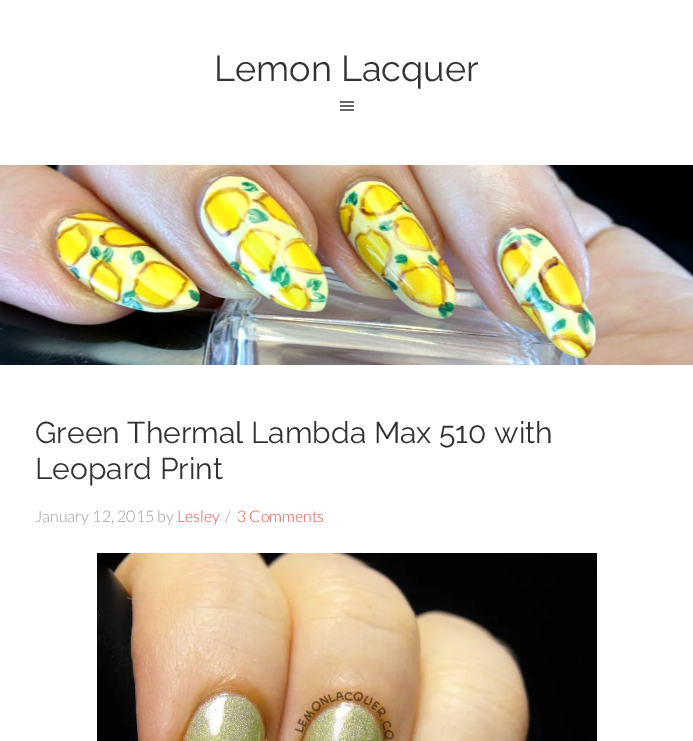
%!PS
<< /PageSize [693 741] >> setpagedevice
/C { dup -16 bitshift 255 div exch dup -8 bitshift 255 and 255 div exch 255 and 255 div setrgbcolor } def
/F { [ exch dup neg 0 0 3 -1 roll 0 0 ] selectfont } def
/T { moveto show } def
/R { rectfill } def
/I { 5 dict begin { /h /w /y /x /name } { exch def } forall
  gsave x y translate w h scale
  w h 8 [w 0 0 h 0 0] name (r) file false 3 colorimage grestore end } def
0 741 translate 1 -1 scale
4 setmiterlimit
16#FFFFFF C
0 0 693 741 R
/Raleway-Regular 36 F
16#333333 C
(Lemon Lacquer) 214 81 T
(1.rgb) 340 101 14 10 I
(2.rgb) 0 165 693 200 I
/Raleway-Regular 30 F
(Green Thermal Lambda Max 510 with) 35 443 T
(Leopard Print) 35 479 T
/Lato-Light 16 F
16#999999 C
(January 12, 2015 by) 35 522 T
16#E5554E C
(Lesley) 177 522 T
16#999999 C
(/) 225 522 T
16#E5554E C
(3 Comments) 237 522 T
(3.rgb) 97 553 500 188 I
showpage
